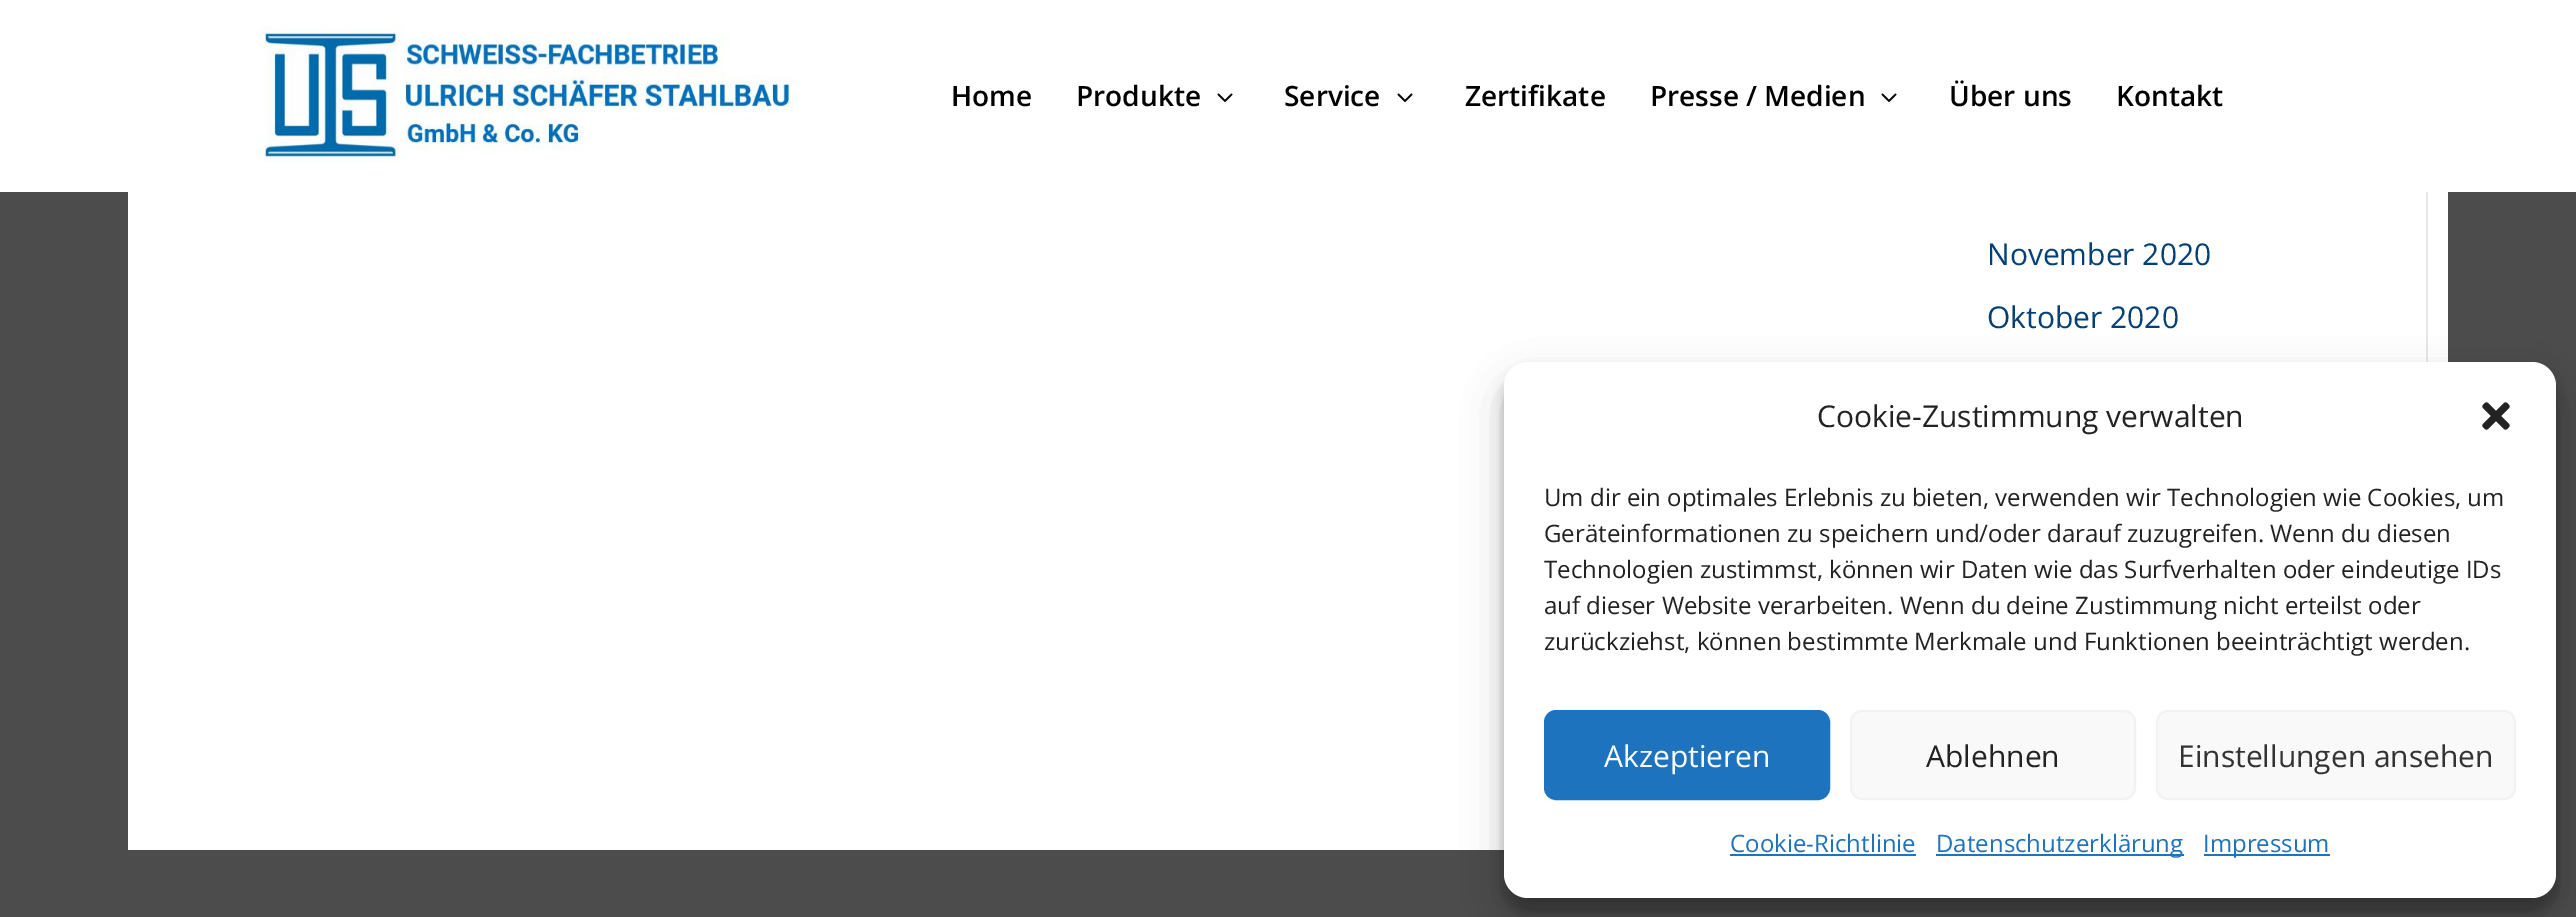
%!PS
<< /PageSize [2576 917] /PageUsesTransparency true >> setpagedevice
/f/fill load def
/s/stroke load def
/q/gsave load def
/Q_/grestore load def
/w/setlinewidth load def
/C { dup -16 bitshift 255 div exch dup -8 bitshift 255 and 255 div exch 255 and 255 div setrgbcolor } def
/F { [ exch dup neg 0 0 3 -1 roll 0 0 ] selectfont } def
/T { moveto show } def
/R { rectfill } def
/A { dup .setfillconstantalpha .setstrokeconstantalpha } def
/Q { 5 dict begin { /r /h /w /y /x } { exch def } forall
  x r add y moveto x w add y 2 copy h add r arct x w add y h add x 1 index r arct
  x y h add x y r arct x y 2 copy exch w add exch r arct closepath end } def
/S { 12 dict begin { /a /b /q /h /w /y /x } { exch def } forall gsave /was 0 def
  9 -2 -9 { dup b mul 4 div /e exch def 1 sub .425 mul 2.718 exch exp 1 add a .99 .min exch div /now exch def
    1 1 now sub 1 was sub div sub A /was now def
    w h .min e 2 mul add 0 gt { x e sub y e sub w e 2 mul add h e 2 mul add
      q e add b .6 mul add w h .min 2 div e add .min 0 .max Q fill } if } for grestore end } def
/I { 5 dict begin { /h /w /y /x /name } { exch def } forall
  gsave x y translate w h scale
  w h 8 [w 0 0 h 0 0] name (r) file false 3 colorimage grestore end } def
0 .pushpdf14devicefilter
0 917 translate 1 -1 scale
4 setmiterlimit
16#4C4C4C C
0 0 2576 917 R
16#FFFFFF C
0 0 2576 192 R
(1.rgb) 258 26 538 137 I
/OpenSans-SemiBold 28 F
16#000000 C
(Home) 951 106 T
(Produkte) 1076 106 T
(2.rgb) 1217 93 16 9 I
(Service) 1284 106 T
(2.rgb) 1397 93 16 9 I
(Zertifikate) 1465 106 T
(Presse / Medien) 1650 106 T
(2.rgb) 1881 93 16 9 I
(Über uns) 1949 106 T
(Kontakt) 2116 106 T
16#FFFFFF C
128 192 2320 658 R
16#E6E6E6 C
2426 192 2 170 R
/OpenSans-Regular 30 F
16#034075 C
(November 2020) 1987 265 T
(Oktober 2020) 1987 328 T
16#000000 C
1504 374 1052 536 24 6 .23 S
1504 382 1052 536 24 20 .19 S
16#FFFFFF C
1504 362 1052 536 24 Q f
16#222222 C
(Cookie-Zustimmung verwalten) 1817 427 T
(3.rgb) 2482 402 28 28 I
/OpenSans-Regular 24 F
(Um dir ein optimales Erlebnis zu bieten, verwenden wir Technologien wie Cookies, um) 1544 506 T
(Geräteinformationen zu speichern und/oder darauf zuzugreifen. Wenn du diesen) 1544 542 T
(Technologien zustimmst, können wir Daten wie das Surfverhalten oder eindeutige IDs) 1544 578 T
(auf dieser Website verarbeiten. Wenn du deine Zustimmung nicht erteilst oder) 1544 614 T
(zurückziehst, können bestimmte Merkmale und Funktionen beeinträchtigt werden.) 1544 650 T
16#1E73BE C
1545 711 284 88 11 Q q f Q_
2 w
s
/OpenSans-Regular 30 F
16#FFFFFF C
(Akzeptieren) 1604 767 T
16#F9F9F9 C
1851 711 284 88 11 Q q f Q_
16#F2F2F2 C
s
16#222222 C
(Ablehnen) 1926 767 T
16#F9F9F9 C
2157 711 358 88 11 Q q f Q_
16#F2F2F2 C
s
16#333333 C
(Einstellungen ansehen) 2178 767 T
/OpenSans-Regular 24 F
16#1E73BE C
(Cookie-Richtlinie) 1730 852 T
1730 854 186 2 R
1936 854 248 2 R
(Datenschutzerklärung) 1936 852 T
2204 854 126 2 R
(Impressum) 2203 852 T
.poppdf14devicefilter showpage
